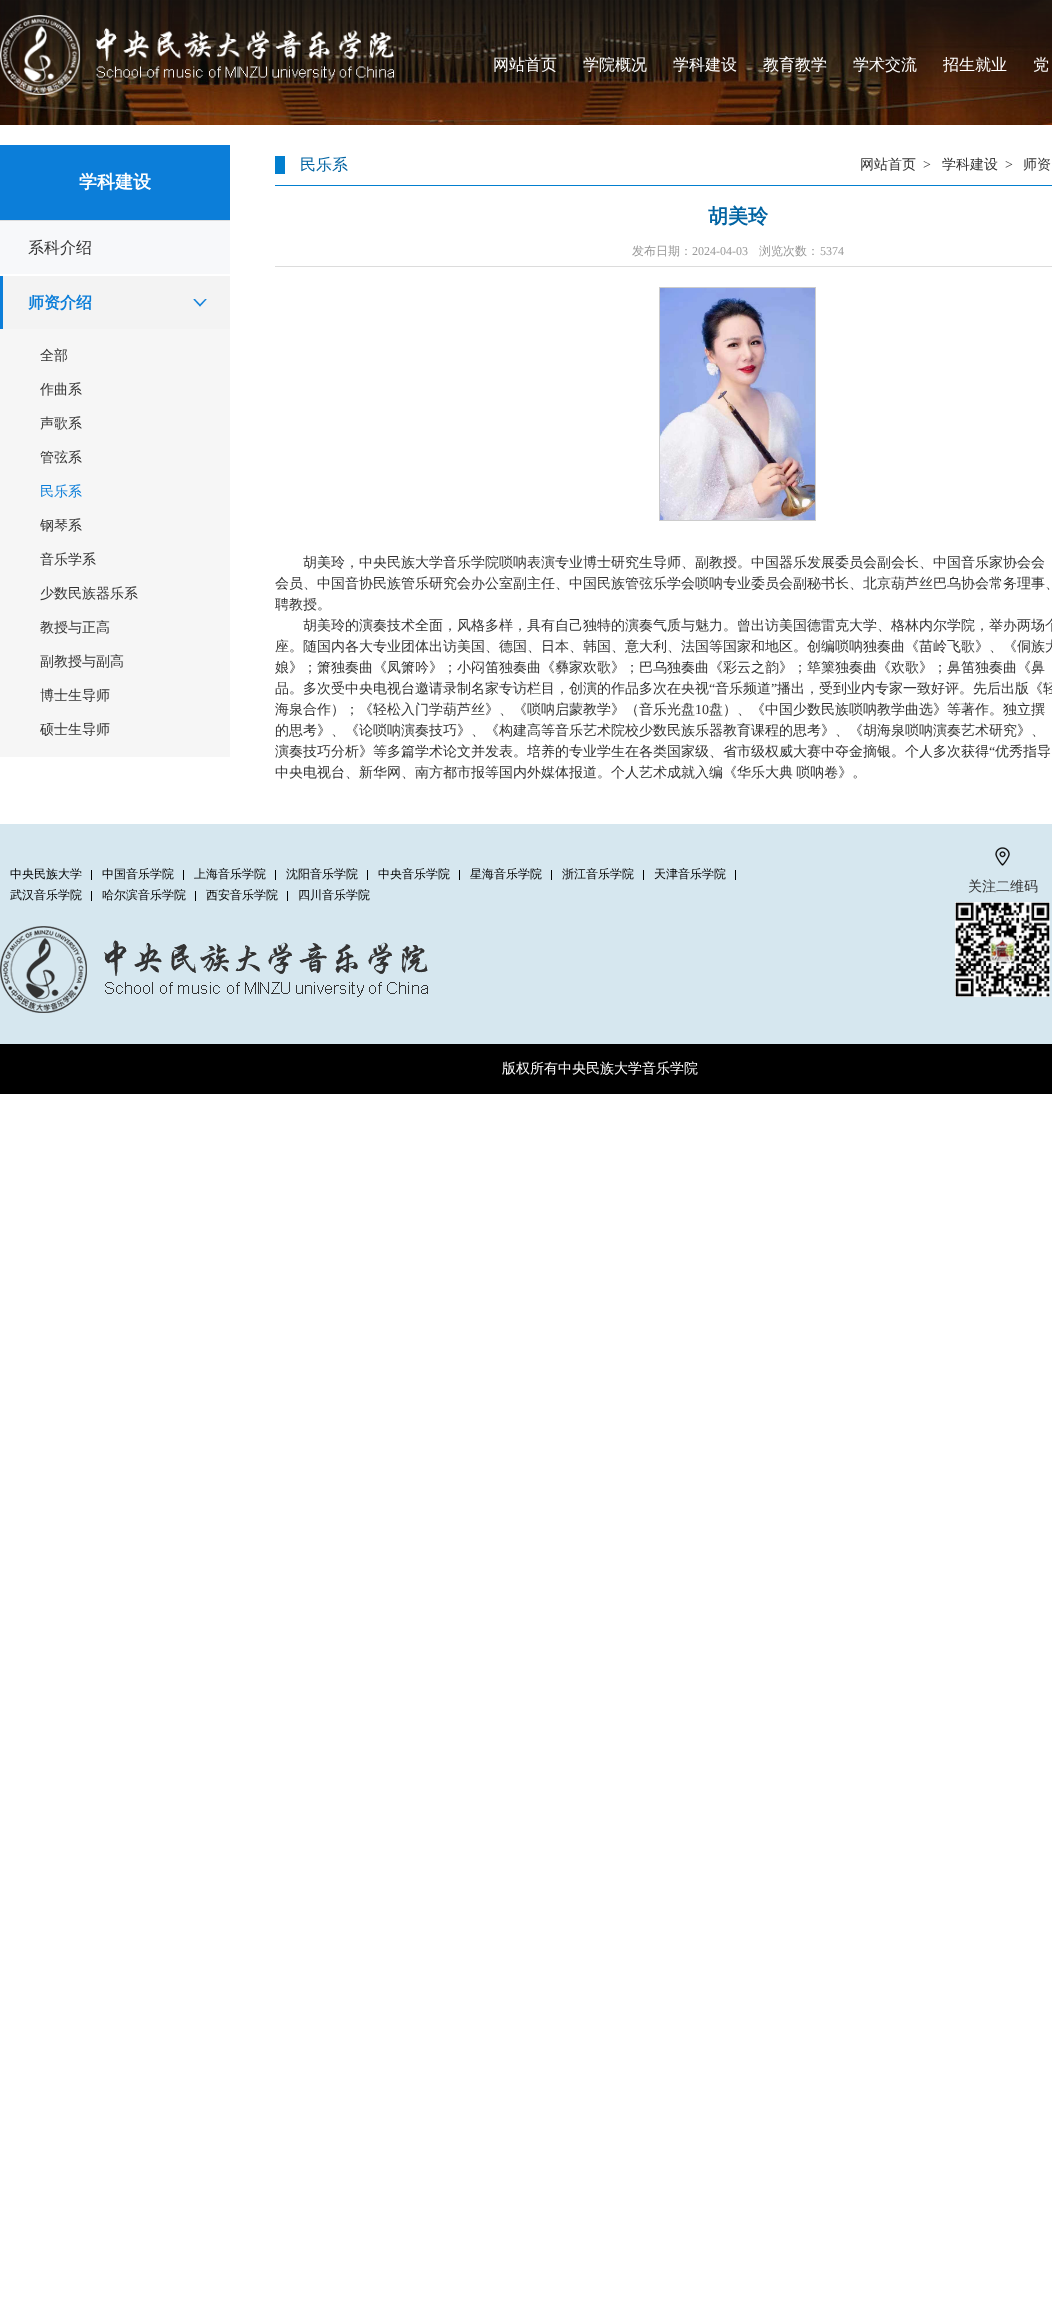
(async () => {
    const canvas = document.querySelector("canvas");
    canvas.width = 1052;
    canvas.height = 2324;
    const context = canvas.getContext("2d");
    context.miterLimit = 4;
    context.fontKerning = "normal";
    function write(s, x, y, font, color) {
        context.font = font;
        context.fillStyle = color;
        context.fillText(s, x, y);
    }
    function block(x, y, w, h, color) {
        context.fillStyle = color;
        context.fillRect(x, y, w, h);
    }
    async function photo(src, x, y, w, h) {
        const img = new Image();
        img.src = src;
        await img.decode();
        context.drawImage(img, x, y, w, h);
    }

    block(0, 0, 1052, 2324, "rgb(255, 255, 255)");
    await photo("media/1.png", 0, 0, 1052, 125);
    await photo("media/2.png", 0, 0, 1052, 125);
    await photo("media/3.png", 0, 15, 394, 80);
    write("网站首页", 493, 70, "500 16px WenQuanYi Zen Hei", "rgb(255, 255, 255)");
    write("学院概况", 583, 70, "500 16px WenQuanYi Zen Hei", "rgb(255, 255, 255)");
    write("学科建设", 673, 70, "500 16px WenQuanYi Zen Hei", "rgb(255, 255, 255)");
    write("教育教学", 763, 70, "500 16px WenQuanYi Zen Hei", "rgb(255, 255, 255)");
    write("学术交流", 853, 70, "500 16px WenQuanYi Zen Hei", "rgb(255, 255, 255)");
    write("招生就业", 943, 70, "500 16px WenQuanYi Zen Hei", "rgb(255, 255, 255)");
    write("党", 1033, 70, "500 16px WenQuanYi Zen Hei", "rgb(255, 255, 255)");
    block(0, 145, 230, 75, "rgb(12, 126, 217)");
    block(0, 220, 230, 1, "rgb(221, 221, 221)");
    write("学科建设", 79, 188, "bold 18px WenQuanYi Zen Hei", "rgb(255, 255, 255)");
    block(0, 221, 230, 53, "rgb(247, 248, 250)");
    write("系科介绍", 28, 253, "500 16px WenQuanYi Zen Hei", "rgb(51, 51, 51)");
    block(3, 276, 227, 53, "rgb(243, 243, 243)");
    block(0, 276, 3, 53, "rgb(12, 126, 217)");
    write("师资介绍", 28, 308, "bold 16px WenQuanYi Zen Hei", "rgb(12, 126, 217)");
    await photo("media/4.png", 193, 299, 14, 8);
    block(0, 329, 230, 428, "rgb(246, 246, 246)");
    write("全部", 40, 360, "500 14px WenQuanYi Zen Hei", "rgb(51, 51, 51)");
    write("作曲系", 40, 394, "500 14px WenQuanYi Zen Hei", "rgb(51, 51, 51)");
    write("声歌系", 40, 428, "500 14px WenQuanYi Zen Hei", "rgb(51, 51, 51)");
    write("管弦系", 40, 462, "500 14px WenQuanYi Zen Hei", "rgb(51, 51, 51)");
    write("民乐系", 40, 496, "500 14px WenQuanYi Zen Hei", "rgb(12, 126, 217)");
    write("钢琴系", 40, 530, "500 14px WenQuanYi Zen Hei", "rgb(51, 51, 51)");
    write("音乐学系", 40, 564, "500 14px WenQuanYi Zen Hei", "rgb(51, 51, 51)");
    write("少数民族器乐系", 40, 598, "500 14px WenQuanYi Zen Hei", "rgb(51, 51, 51)");
    write("教授与正高", 40, 632, "500 14px WenQuanYi Zen Hei", "rgb(51, 51, 51)");
    write("副教授与副高", 40, 666, "500 14px WenQuanYi Zen Hei", "rgb(51, 51, 51)");
    write("博士生导师", 40, 700, "500 14px WenQuanYi Zen Hei", "rgb(51, 51, 51)");
    write("硕士生导师", 40, 734, "500 14px WenQuanYi Zen Hei", "rgb(51, 51, 51)");
    block(275, 185, 777, 1, "rgb(2, 127, 207)");
    block(275, 156, 10, 18, "rgb(2, 127, 207)");
    write("民乐系", 300, 170, "500 16px WenQuanYi Zen Hei", "rgb(1, 99, 162)");
    write("网站首页", 860, 169, "500 14px WenQuanYi Zen Hei", "rgb(51, 51, 51)");
    write(">", 923, 169, "14px Liberation Serif", "rgb(51, 51, 51)");
    write("学科建设", 942, 169, "500 14px WenQuanYi Zen Hei", "rgb(51, 51, 51)");
    write(">", 1005, 169, "14px Liberation Serif", "rgb(51, 51, 51)");
    write("师资", 1023, 169, "500 14px WenQuanYi Zen Hei", "rgb(51, 51, 51)");
    block(275, 266, 777, 1, "rgb(220, 220, 220)");
    write("胡美玲", 708, 223, "bold 20px WenQuanYi Zen Hei", "rgb(1, 99, 162)");
    write("发布日期：", 632, 255, "500 12px WenQuanYi Zen Hei", "rgb(153, 153, 153)");
    write("2024-04-03", 692, 255, "12px Liberation Serif", "rgb(153, 153, 153)");
    write("浏览次数：", 759, 255, "500 12px WenQuanYi Zen Hei", "rgb(153, 153, 153)");
    write("5374", 820, 255, "12px Liberation Serif", "rgb(153, 153, 153)");
    context.strokeStyle = "rgb(204, 204, 204)";
    context.strokeRect(659.5, 287.5, 156, 233);
    await photo("media/5.png", 660, 288, 155, 232);
    write("胡美玲，中央民族大学音乐学院唢呐表演专业博士研究生导师、副教授。中国器乐发展委员会副会长、中国音乐家协会会", 303, 567, "500 14px WenQuanYi Zen Hei", "rgb(51, 51, 51)");
    write("会员、中国音协民族管乐研究会办公室副主任、中国民族管弦乐学会唢呐专业委员会副秘书长、北京葫芦丝巴乌协会常务理事、", 275, 588, "500 14px WenQuanYi Zen Hei", "rgb(51, 51, 51)");
    write("聘教授。", 275, 609, "500 14px WenQuanYi Zen Hei", "rgb(51, 51, 51)");
    write("胡美玲的演奏技术全面，风格多样，具有自己独特的演奏气质与魅力。曾出访美国德雷克大学、格林内尔学院，举办两场个", 303, 630, "500 14px WenQuanYi Zen Hei", "rgb(51, 51, 51)");
    write("座。随国内各大专业团体出访美国、德国、日本、韩国、意大利、法国等国家和地区。创编唢呐独奏曲《苗岭飞歌》、《侗族大", 275, 651, "500 14px WenQuanYi Zen Hei", "rgb(51, 51, 51)");
    write("娘》；箫独奏曲《凤箫吟》；小闷笛独奏曲《彝家欢歌》；巴乌独奏曲《彩云之韵》；筚篥独奏曲《欢歌》；鼻笛独奏曲《鼻", 275, 672, "500 14px WenQuanYi Zen Hei", "rgb(51, 51, 51)");
    write("品。多次受中央电视台邀请录制名家专访栏目，创演的作品多次在央视", 275, 693, "500 14px WenQuanYi Zen Hei", "rgb(51, 51, 51)");
    write("“", 709, 693, "14px Liberation Serif", "rgb(51, 51, 51)");
    write("音乐频道", 715, 693, "500 14px WenQuanYi Zen Hei", "rgb(51, 51, 51)");
    write("”", 771, 693, "14px Liberation Serif", "rgb(51, 51, 51)");
    write("播出，受到业内专家一致好评。先后出版《轻", 777, 693, "500 14px WenQuanYi Zen Hei", "rgb(51, 51, 51)");
    write("海泉合作）；《轻松入门学葫芦丝》、《唢呐启蒙教学》（音乐光盘", 275, 714, "500 14px WenQuanYi Zen Hei", "rgb(51, 51, 51)");
    write("10", 695, 714, "14px Liberation Serif", "rgb(51, 51, 51)");
    write("盘）、《中国少数民族唢呐教学曲选》等著作。独立撰", 709, 714, "500 14px WenQuanYi Zen Hei", "rgb(51, 51, 51)");
    write("的思考》、《论唢呐演奏技巧》、《构建高等音乐艺术院校少数民族乐器教育课程的思考》、《胡海泉唢呐演奏艺术研究》、", 275, 735, "500 14px WenQuanYi Zen Hei", "rgb(51, 51, 51)");
    write("演奏技巧分析》等多篇学术论文并发表。培养的专业学生在各类国家级、省市级权威大赛中夺金摘银。个人多次获得", 275, 756, "500 14px WenQuanYi Zen Hei", "rgb(51, 51, 51)");
    write("“", 989, 756, "14px Liberation Serif", "rgb(51, 51, 51)");
    write("优秀指导", 995, 756, "500 14px WenQuanYi Zen Hei", "rgb(51, 51, 51)");
    context.wordSpacing = "-1px";
    write("中央电视台、新华网、南方都市报等国内外媒体报道。个人艺术成就入编《华乐大典 唢呐卷》。", 275, 777, "500 14px WenQuanYi Zen Hei", "rgb(51, 51, 51)");
    block(0, 824, 1052, 220, "rgb(214, 231, 239)");
    block(91, 870, 1, 10, "rgb(0, 0, 0)");
    context.wordSpacing = "0px";
    write("中央民族大学", 10, 878, "500 12px WenQuanYi Zen Hei", "rgb(0, 0, 0)");
    block(183, 870, 1, 10, "rgb(0, 0, 0)");
    write("中国音乐学院", 102, 878, "500 12px WenQuanYi Zen Hei", "rgb(0, 0, 0)");
    block(275, 870, 1, 10, "rgb(0, 0, 0)");
    write("上海音乐学院", 194, 878, "500 12px WenQuanYi Zen Hei", "rgb(0, 0, 0)");
    block(367, 870, 1, 10, "rgb(0, 0, 0)");
    write("沈阳音乐学院", 286, 878, "500 12px WenQuanYi Zen Hei", "rgb(0, 0, 0)");
    block(459, 870, 1, 10, "rgb(0, 0, 0)");
    write("中央音乐学院", 378, 878, "500 12px WenQuanYi Zen Hei", "rgb(0, 0, 0)");
    block(551, 870, 1, 10, "rgb(0, 0, 0)");
    write("星海音乐学院", 470, 878, "500 12px WenQuanYi Zen Hei", "rgb(0, 0, 0)");
    block(643, 870, 1, 10, "rgb(0, 0, 0)");
    write("浙江音乐学院", 562, 878, "500 12px WenQuanYi Zen Hei", "rgb(0, 0, 0)");
    block(735, 870, 1, 10, "rgb(0, 0, 0)");
    write("天津音乐学院", 654, 878, "500 12px WenQuanYi Zen Hei", "rgb(0, 0, 0)");
    block(91, 891, 1, 10, "rgb(0, 0, 0)");
    write("武汉音乐学院", 10, 899, "500 12px WenQuanYi Zen Hei", "rgb(0, 0, 0)");
    block(195, 891, 1, 10, "rgb(0, 0, 0)");
    write("哈尔滨音乐学院", 102, 899, "500 12px WenQuanYi Zen Hei", "rgb(0, 0, 0)");
    block(287, 891, 1, 10, "rgb(0, 0, 0)");
    write("西安音乐学院", 206, 899, "500 12px WenQuanYi Zen Hei", "rgb(0, 0, 0)");
    write("四川音乐学院", 298, 899, "500 12px WenQuanYi Zen Hei", "rgb(0, 0, 0)");
    await photo("media/6.png", 0, 926, 428, 87);
    await photo("media/7.png", 995, 847, 15, 19);
    write("关注二维码", 968, 891, "500 14px WenQuanYi Zen Hei", "rgb(51, 51, 51)");
    await photo("media/8.png", 955, 902, 95, 95);
    block(0, 1044, 1052, 50, "rgb(0, 0, 0)");
    write("版权所有中央民族大学音乐学院", 502, 1073, "500 14px WenQuanYi Zen Hei", "rgb(255, 255, 255)");
})();
